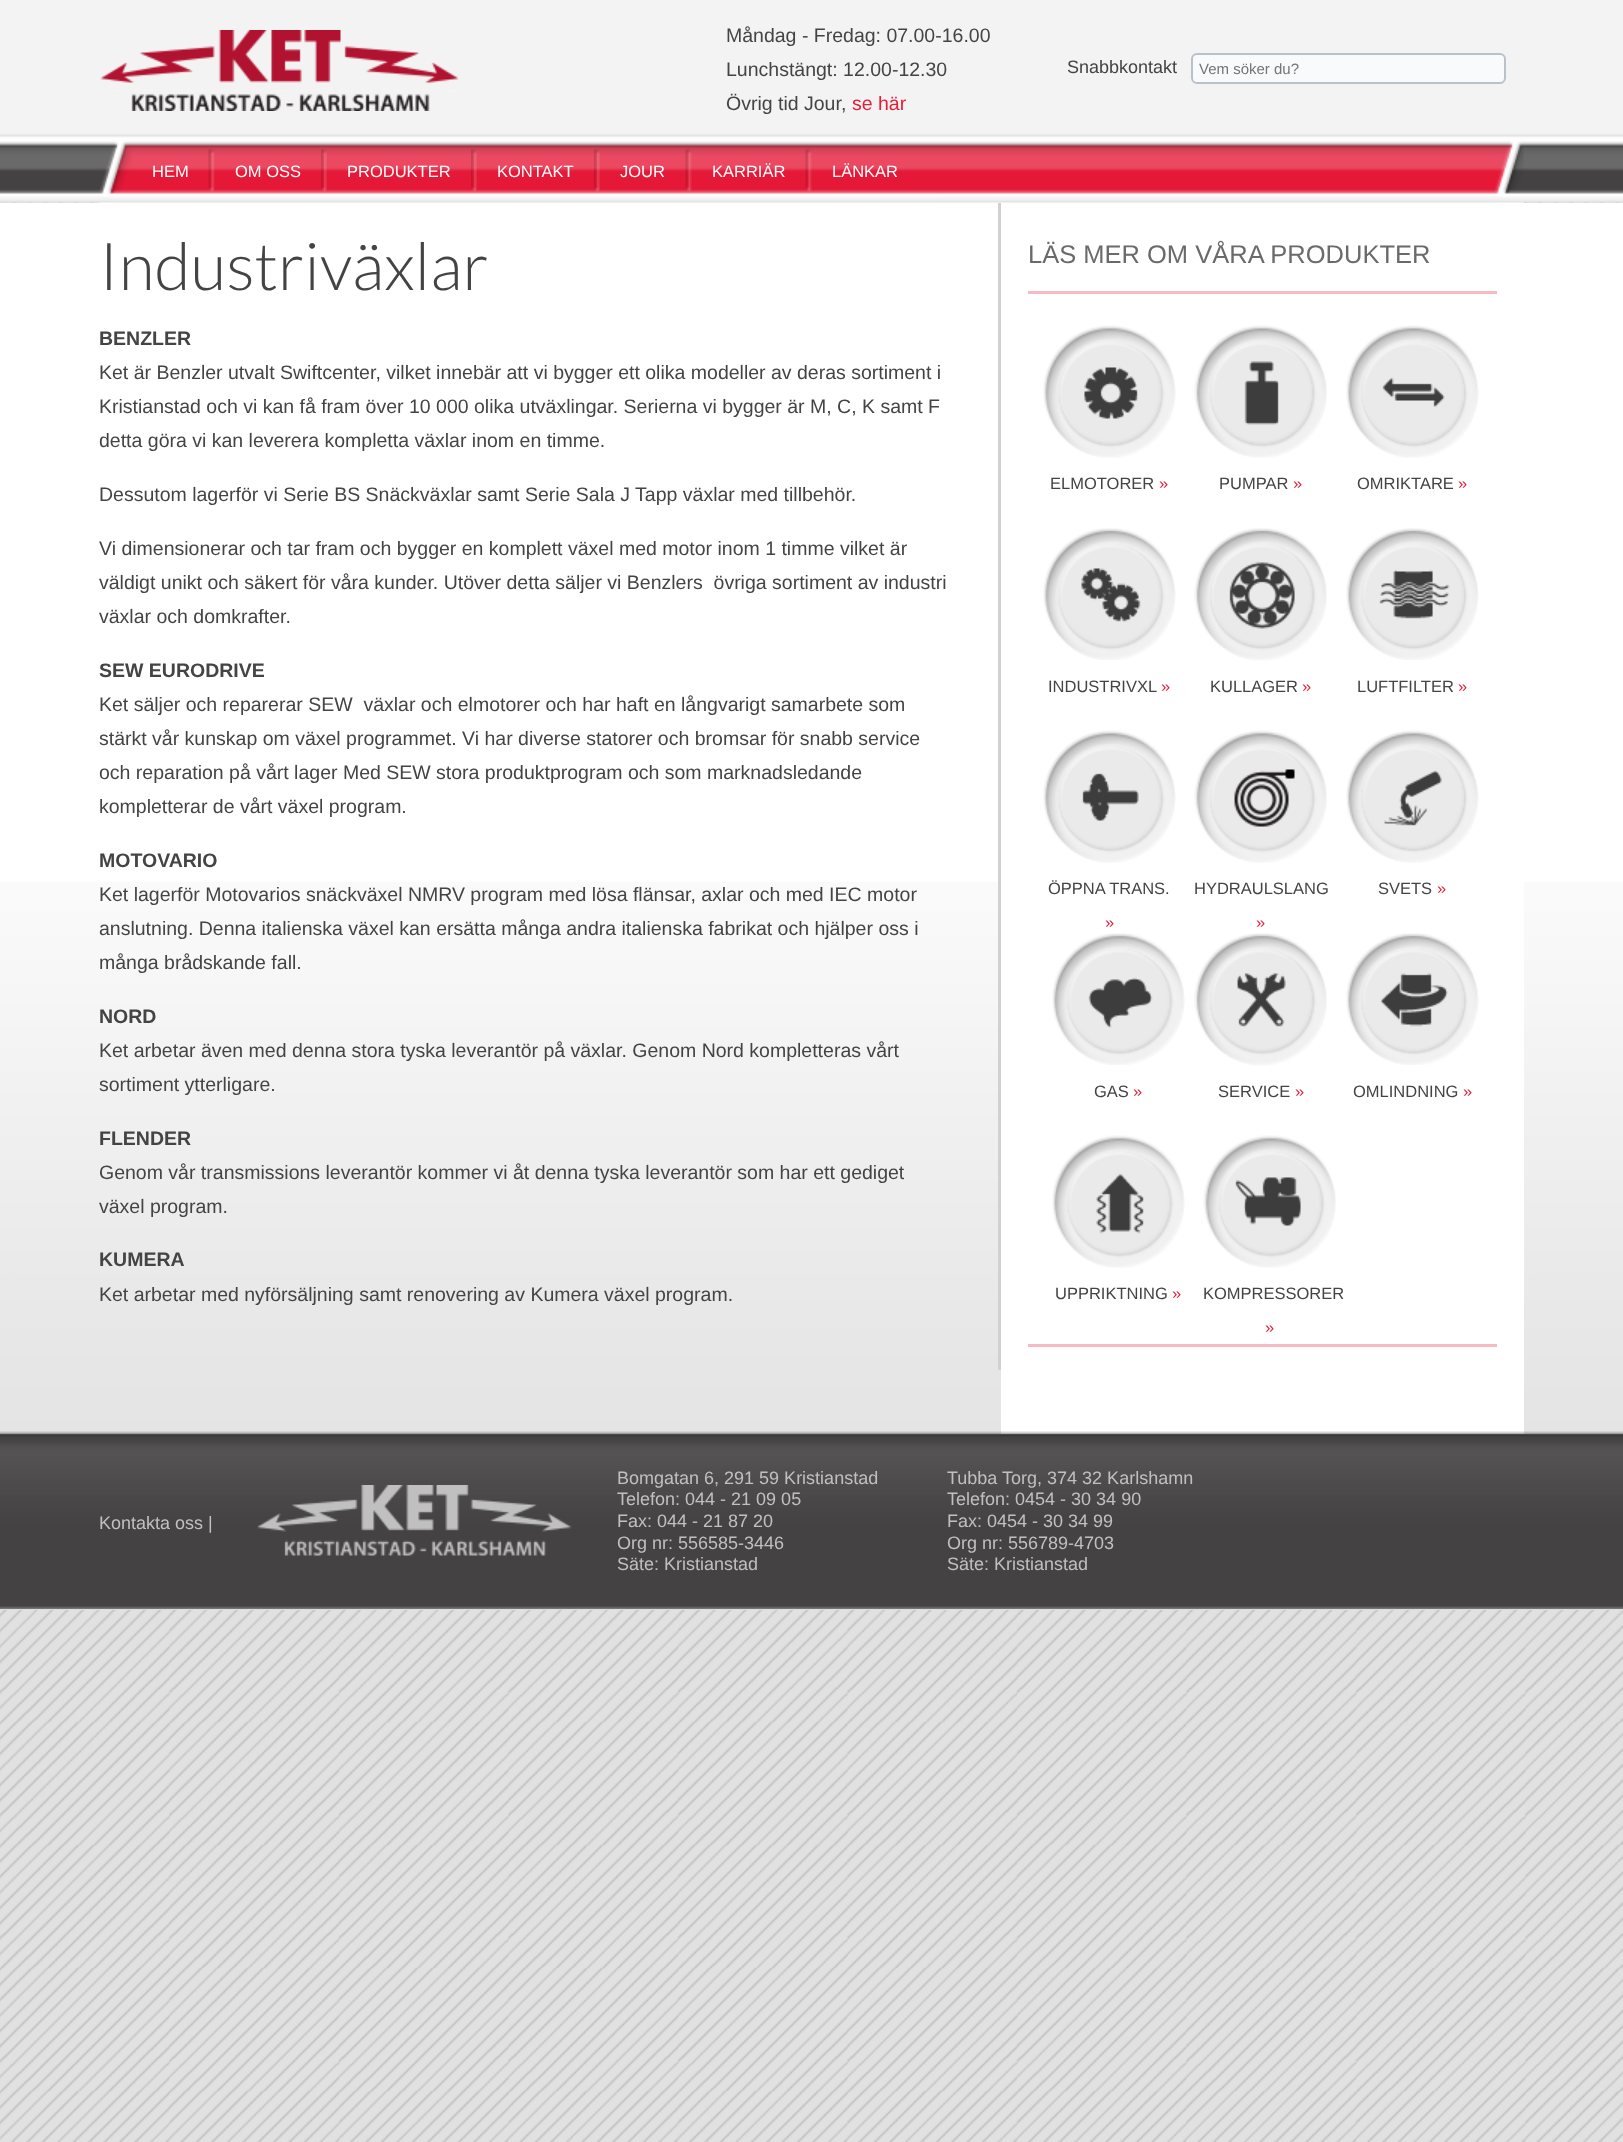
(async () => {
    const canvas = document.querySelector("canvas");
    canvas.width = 1623;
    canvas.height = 2142;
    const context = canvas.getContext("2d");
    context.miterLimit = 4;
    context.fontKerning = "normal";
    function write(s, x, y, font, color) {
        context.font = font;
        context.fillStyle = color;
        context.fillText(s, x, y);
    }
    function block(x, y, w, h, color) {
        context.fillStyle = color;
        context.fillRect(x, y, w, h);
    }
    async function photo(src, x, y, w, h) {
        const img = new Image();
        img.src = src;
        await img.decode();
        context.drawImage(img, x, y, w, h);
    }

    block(0, 0, 1623, 2142, "rgb(255, 255, 255)");
    await photo("media/1.png", 0, 202, 1623, 1940);
    await photo("media/2.png", 0, 0, 1623, 203);
    await photo("media/3.png", 100, 30, 359, 81);
    write("Måndag - Fredag: 07.00-16.00", 726, 42, "19.5px Liberation Sans", "rgb(68, 68, 68)");
    write("Lunchstängt: 12.00-12.30", 726, 76, "19.5px Liberation Sans", "rgb(68, 68, 68)");
    write("Övrig tid Jour,", 726, 110, "19.5px Liberation Sans", "rgb(68, 68, 68)");
    write("se här", 852, 110, "19.5px Liberation Sans", "rgb(231, 28, 55)");
    write("Snabbkontakt", 1067, 73, "18px Liberation Sans", "rgb(68, 68, 68)");
    context.fillStyle = "rgb(249, 250, 251)";
    context.beginPath();
    context.roundRect(1192, 54, 313, 29, 5);
    context.fill();
    context.strokeStyle = "rgb(185, 194, 203)";
    context.lineWidth = 2;
    context.stroke();
    write("Vem söker du?", 1199, 74, "15px Liberation Sans", "rgb(117, 117, 117)");
    block(99, 202, 1425, 1, "rgb(255, 255, 255)");
    await photo("media/4.png", 99, 134, 1425, 69);
    write("HEM", 152, 177, "16.5px Liberation Sans", "rgb(254, 254, 255)");
    await photo("media/5.png", 208, 148, 7, 44);
    write("OM OSS", 235, 177, "16.5px Liberation Sans", "rgb(254, 254, 255)");
    await photo("media/6.png", 321, 148, 6, 44);
    write("PRODUKTER", 347, 177, "16.5px Liberation Sans", "rgb(254, 254, 255)");
    await photo("media/6.png", 471, 148, 6, 44);
    write("KONTAKT", 497, 177, "16.5px Liberation Sans", "rgb(254, 254, 255)");
    await photo("media/6.png", 594, 148, 6, 44);
    write("JOUR", 620, 177, "16.5px Liberation Sans", "rgb(254, 254, 255)");
    await photo("media/7.png", 685, 148, 7, 44);
    write("KARRIÄR", 712, 177, "16.5px Liberation Sans", "rgb(254, 254, 255)");
    await photo("media/5.png", 805, 148, 7, 44);
    write("LÄNKAR", 832, 177, "16.5px Liberation Sans", "rgb(254, 254, 255)");
    block(0, 203, 1623, 1407, "rgb(255, 255, 255)");
    await photo("media/22.png", 0, 882, 1623, 553);
    block(998, 203, 3, 1167, "rgb(209, 209, 209)");
    write("Industriväxlar", 99, 290, "300 66px Lato", "rgb(68, 68, 68)");
    write("BENZLER", 99, 345, "bold 19.5px Liberation Sans", "rgb(68, 68, 68)");
    write("Ket är Benzler utvalt Swiftcenter, vilket innebär att vi bygger ett olika modeller av deras sortiment i", 99, 379, "19.5px Liberation Sans", "rgb(68, 68, 68)");
    write("Kristianstad och vi kan få fram över 10 000 olika utväxlingar. Serierna vi bygger är M, C, K samt F", 99, 413, "19.5px Liberation Sans", "rgb(68, 68, 68)");
    write("detta göra vi kan leverera kompletta växlar inom en timme.", 99, 447, "19.5px Liberation Sans", "rgb(68, 68, 68)");
    write("Dessutom lagerför vi Serie BS Snäckväxlar samt Serie Sala J Tapp växlar med tillbehör.", 99, 501, "19.5px Liberation Sans", "rgb(68, 68, 68)");
    write("Vi dimensionerar och tar fram och bygger en komplett växel med motor inom 1 timme vilket är", 99, 555, "19.5px Liberation Sans", "rgb(68, 68, 68)");
    write("väldigt unikt och säkert för våra kunder. Utöver detta säljer vi Benzlers  övriga sortiment av industri", 99, 589, "19.5px Liberation Sans", "rgb(68, 68, 68)");
    write("växlar och domkrafter.", 99, 623, "19.5px Liberation Sans", "rgb(68, 68, 68)");
    write("SEW EURODRIVE", 99, 677, "bold 19.5px Liberation Sans", "rgb(68, 68, 68)");
    write("Ket säljer och reparerar SEW  växlar och elmotorer och har haft en långvarigt samarbete som", 99, 711, "19.5px Liberation Sans", "rgb(68, 68, 68)");
    write("stärkt vår kunskap om växel programmet. Vi har diverse statorer och bromsar för snabb service", 99, 745, "19.5px Liberation Sans", "rgb(68, 68, 68)");
    write("och reparation på vårt lager Med SEW stora produktprogram och som marknadsledande", 99, 779, "19.5px Liberation Sans", "rgb(68, 68, 68)");
    write("kompletterar de vårt växel program.", 99, 813, "19.5px Liberation Sans", "rgb(68, 68, 68)");
    write("MOTOVARIO", 99, 867, "bold 19.5px Liberation Sans", "rgb(68, 68, 68)");
    write("Ket lagerför Motovarios snäckväxel NMRV program med lösa flänsar, axlar och med IEC motor", 99, 901, "19.5px Liberation Sans", "rgb(68, 68, 68)");
    write("anslutning. Denna italienska växel kan ersätta många andra italienska fabrikat och hjälper oss i", 99, 935, "19.5px Liberation Sans", "rgb(68, 68, 68)");
    write("många brådskande fall.", 99, 969, "19.5px Liberation Sans", "rgb(68, 68, 68)");
    write("NORD", 99, 1023, "bold 19.5px Liberation Sans", "rgb(68, 68, 68)");
    write("Ket arbetar även med denna stora tyska leverantör på växlar. Genom Nord kompletteras vårt", 99, 1057, "19.5px Liberation Sans", "rgb(68, 68, 68)");
    write("sortiment ytterligare.", 99, 1091, "19.5px Liberation Sans", "rgb(68, 68, 68)");
    write("FLENDER", 99, 1145, "bold 19.5px Liberation Sans", "rgb(68, 68, 68)");
    write("Genom vår transmissions leverantör kommer vi åt denna tyska leverantör som har ett gediget", 99, 1179, "19.5px Liberation Sans", "rgb(68, 68, 68)");
    write("växel program.", 99, 1213, "19.5px Liberation Sans", "rgb(68, 68, 68)");
    write("KUMERA", 99, 1266, "bold 19.5px Liberation Sans", "rgb(68, 68, 68)");
    write("Ket arbetar med nyförsäljning samt renovering av Kumera växel program.", 99, 1301, "19.5px Liberation Sans", "rgb(68, 68, 68)");
    block(1001, 882, 523, 552, "rgb(255, 255, 255)");
    write("LÄS MER OM VÅRA PRODUKTER", 1028, 263, "25.5px Liberation Sans", "rgb(106, 106, 106)");
    block(1028, 291, 469, 3, "rgb(246, 186, 194)");
    block(1028, 1344, 469, 3, "rgb(246, 186, 194)");
    await photo("media/8.png", 1043, 325, 133, 133);
    write("ELMOTORER", 1050, 489, "16.5px Liberation Sans", "rgb(68, 68, 68)");
    write("»", 1159, 489, "16.5px Liberation Sans", "rgb(231, 28, 55)");
    await photo("media/9.png", 1194, 325, 133, 133);
    write("PUMPAR", 1219, 489, "16.5px Liberation Sans", "rgb(68, 68, 68)");
    write("»", 1293, 489, "16.5px Liberation Sans", "rgb(231, 28, 55)");
    await photo("media/10.png", 1346, 325, 133, 133);
    write("OMRIKTARE", 1357, 489, "16.5px Liberation Sans", "rgb(68, 68, 68)");
    write("»", 1458, 489, "16.5px Liberation Sans", "rgb(231, 28, 55)");
    await photo("media/11.png", 1043, 528, 133, 132);
    write("INDUSTRIVXL", 1048, 692, "16.5px Liberation Sans", "rgb(68, 68, 68)");
    write("»", 1161, 692, "16.5px Liberation Sans", "rgb(231, 28, 55)");
    await photo("media/12.png", 1194, 528, 133, 133);
    write("KULLAGER", 1210, 692, "16.5px Liberation Sans", "rgb(68, 68, 68)");
    write("»", 1302, 692, "16.5px Liberation Sans", "rgb(231, 28, 55)");
    await photo("media/13.png", 1346, 528, 133, 132);
    write("LUFTFILTER", 1357, 692, "16.5px Liberation Sans", "rgb(68, 68, 68)");
    write("»", 1458, 692, "16.5px Liberation Sans", "rgb(231, 28, 55)");
    await photo("media/14.png", 1043, 730, 133, 133);
    write("ÖPPNA TRANS.", 1048, 894, "16.5px Liberation Sans", "rgb(68, 68, 68)");
    write("»", 1105, 928, "16.5px Liberation Sans", "rgb(231, 28, 55)");
    await photo("media/15.png", 1194, 730, 133, 133);
    write("HYDRAULSLANG", 1194, 894, "16.5px Liberation Sans", "rgb(68, 68, 68)");
    write("»", 1256, 928, "16.5px Liberation Sans", "rgb(231, 28, 55)");
    await photo("media/16.png", 1346, 730, 133, 133);
    write("SVETS", 1378, 894, "16.5px Liberation Sans", "rgb(68, 68, 68)");
    write("»", 1437, 894, "16.5px Liberation Sans", "rgb(231, 28, 55)");
    await photo("media/17.png", 1052, 933, 133, 132);
    write("GAS", 1094, 1097, "16.5px Liberation Sans", "rgb(68, 68, 68)");
    write("»", 1133, 1097, "16.5px Liberation Sans", "rgb(231, 28, 55)");
    await photo("media/18.png", 1194, 933, 133, 133);
    write("SERVICE", 1218, 1097, "16.5px Liberation Sans", "rgb(68, 68, 68)");
    write("»", 1295, 1097, "16.5px Liberation Sans", "rgb(231, 28, 55)");
    await photo("media/19.png", 1346, 933, 133, 132);
    write("OMLINDNING", 1353, 1097, "16.5px Liberation Sans", "rgb(68, 68, 68)");
    write("»", 1463, 1097, "16.5px Liberation Sans", "rgb(231, 28, 55)");
    await photo("media/20.png", 1052, 1135, 133, 133);
    write("UPPRIKTNING", 1055, 1299, "16.5px Liberation Sans", "rgb(68, 68, 68)");
    write("»", 1172, 1299, "16.5px Liberation Sans", "rgb(231, 28, 55)");
    await photo("media/21.png", 1203, 1135, 133, 133);
    write("KOMPRESSORER", 1203, 1299, "16.5px Liberation Sans", "rgb(68, 68, 68)");
    write("»", 1265, 1333, "16.5px Liberation Sans", "rgb(231, 28, 55)");
    await photo("media/23.png", 0, 1431, 1623, 179);
    write("Kontakta oss |", 99, 1529, "18px Liberation Sans", "rgb(192, 192, 192)");
    await photo("media/24.png", 257, 1485, 315, 71);
    write("Bomgatan 6, 291 59 Kristianstad", 617, 1484, "18px Liberation Sans", "rgb(192, 192, 192)");
    write("Telefon: 044 - 21 09 05", 617, 1505, "18px Liberation Sans", "rgb(192, 192, 192)");
    write("Fax: 044 - 21 87 20", 617, 1527, "18px Liberation Sans", "rgb(192, 192, 192)");
    write("Org nr: 556585-3446", 617, 1549, "18px Liberation Sans", "rgb(192, 192, 192)");
    write("Säte: Kristianstad", 617, 1570, "18px Liberation Sans", "rgb(192, 192, 192)");
    write("Tubba Torg, 374 32 Karlshamn", 947, 1484, "18px Liberation Sans", "rgb(192, 192, 192)");
    write("Telefon: 0454 - 30 34 90", 947, 1505, "18px Liberation Sans", "rgb(192, 192, 192)");
    write("Fax: 0454 - 30 34 99", 947, 1527, "18px Liberation Sans", "rgb(192, 192, 192)");
    write("Org nr: 556789-4703", 947, 1549, "18px Liberation Sans", "rgb(192, 192, 192)");
    write("Säte: Kristianstad", 947, 1570, "18px Liberation Sans", "rgb(192, 192, 192)");
})();
